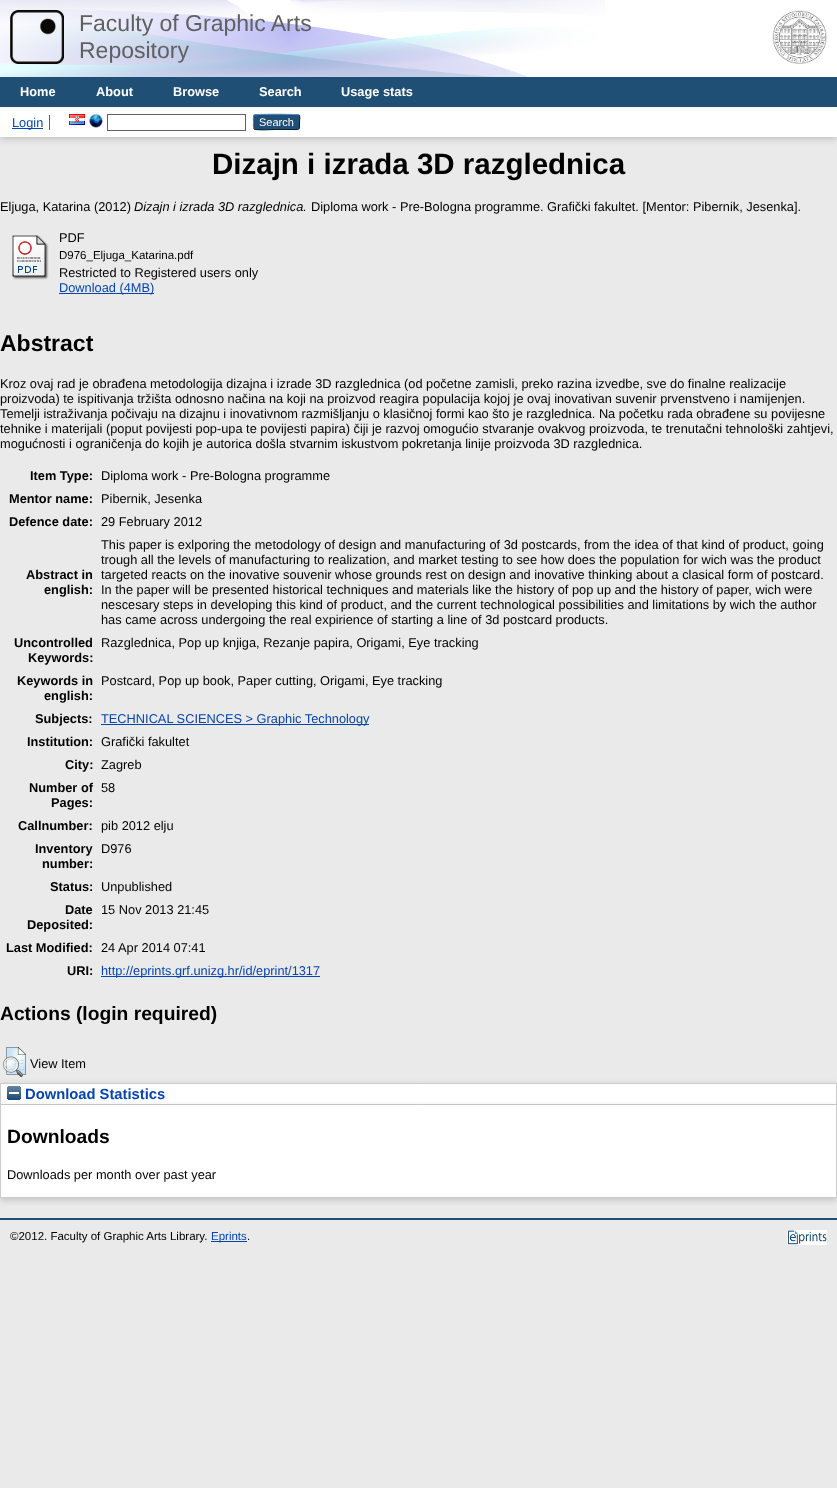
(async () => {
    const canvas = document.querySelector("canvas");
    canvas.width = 837;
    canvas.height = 1488;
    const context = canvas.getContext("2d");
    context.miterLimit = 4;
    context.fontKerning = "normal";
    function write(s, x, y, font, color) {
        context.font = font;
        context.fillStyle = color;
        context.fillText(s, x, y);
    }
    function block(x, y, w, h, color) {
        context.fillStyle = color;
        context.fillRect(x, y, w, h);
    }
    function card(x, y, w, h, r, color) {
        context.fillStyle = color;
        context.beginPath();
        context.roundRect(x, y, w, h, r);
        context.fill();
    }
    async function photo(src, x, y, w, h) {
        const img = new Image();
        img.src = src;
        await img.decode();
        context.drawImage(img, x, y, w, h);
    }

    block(0, 0, 837, 1488, "rgb(234, 234, 234)");
    block(0, 0, 837, 77, "rgb(255, 255, 255)");
    await photo("media/1.png", 0, 0, 605, 77);
    await photo("media/2.png", 10, 10, 54, 54);
    write("Faculty of Graphic Arts", 79, 31, "23px Liberation Sans", "rgb(96, 96, 96)");
    write("Repository", 79, 58, "23px Liberation Sans", "rgb(96, 96, 96)");
    await photo("media/3.png", 772, 10, 55, 54);
    block(0, 77, 837, 30, "rgb(32, 79, 118)");
    block(0, 107, 837, 1, "rgb(255, 255, 255)");
    write("Home", 20, 96, "bold 12.8px Liberation Sans", "rgb(255, 255, 255)");
    write("About", 96, 96, "bold 12.8px Liberation Sans", "rgb(255, 255, 255)");
    write("Browse", 173, 96, "bold 12.8px Liberation Sans", "rgb(255, 255, 255)");
    write("Search", 259, 96, "bold 12.8px Liberation Sans", "rgb(255, 255, 255)");
    write("Usage stats", 341, 96, "bold 12.8px Liberation Sans", "rgb(255, 255, 255)");
    context.fillStyle = "rgba(100, 100, 100, 0.3)";
    context.filter = "blur(3px)";
    context.beginPath();
    context.rect(0, 110, 837, 29);
    context.fill();
    context.filter = "none";
    block(0, 108, 837, 29, "rgb(255, 255, 255)");
    block(49, 115, 1, 15, "rgb(96, 96, 96)");
    block(12, 128, 31, 1, "rgb(6, 69, 173)");
    write("Login", 12, 127, "12.8px Liberation Sans", "rgb(6, 69, 173)");
    await photo("media/4.png", 69, 114, 16, 11);
    await photo("media/5.png", 89, 114, 14, 14);
    context.strokeStyle = "rgb(96, 96, 96)";
    context.strokeRect(107.5, 114.5, 138, 16);
    card(253, 114, 47, 16, 3, "rgb(31, 79, 118)");
    context.beginPath();
    context.moveTo(254, 115);
    context.bezierCurveTo(255.5, 114, 297.5, 114, 299, 115);
    context.strokeStyle = "rgb(91, 151, 199)";
    context.stroke();
    context.beginPath();
    context.moveTo(299, 115);
    context.bezierCurveTo(300.5, 117, 299.5, 120, 299.5, 122);
    context.bezierCurveTo(299.5, 131, 299.5, 129.5, 290, 129.5);
    context.lineTo(276.5, 129.5);
    context.bezierCurveTo(273, 129.5, 256, 130.5, 254, 129);
    context.strokeStyle = "rgb(13, 33, 49)";
    context.stroke();
    context.beginPath();
    context.moveTo(254, 129);
    context.bezierCurveTo(253, 127.5, 253.5, 123.5, 253.5, 122);
    context.bezierCurveTo(253.5, 120.5, 253, 116.5, 254, 115);
    context.strokeStyle = "rgb(82, 135, 179)";
    context.stroke();
    write("Search", 259, 126, "11px Liberation Sans", "rgb(255, 255, 255)");
    write("Dizajn i izrada 3D razglednica", 212, 174, "bold 29.5px Liberation Sans", "rgb(0, 0, 0)");
    write("Eljuga, Katarina (2012)", 0, 211, "12.8px Liberation Sans", "rgb(0, 0, 0)");
    write("Dizajn i izrada 3D razglednica.", 134, 211, "italic 12.8px Liberation Sans", "rgb(0, 0, 0)");
    write("Diploma work - Pre-Bologna programme. Grafički fakultet. [Mentor: Pibernik, Jesenka].", 311, 211, "12.8px Liberation Sans", "rgb(0, 0, 0)");
    await photo("media/6.png", 12, 235, 37, 45);
    write("PDF", 59, 242, "12.8px Liberation Sans", "rgb(0, 0, 0)");
    write("D976_Eljuga_Katarina.pdf", 59, 259, "11.5px Liberation Sans", "rgb(0, 0, 0)");
    write("Restricted to Registered users only", 59, 277, "12.8px Liberation Sans", "rgb(0, 0, 0)");
    block(59, 293, 95, 1, "rgb(6, 69, 173)");
    write("Download (4MB)", 59, 292, "12.8px Liberation Sans", "rgb(6, 69, 173)");
    write("Abstract", 0, 351, "bold 23px Liberation Sans", "rgb(0, 0, 0)");
    write("Kroz ovaj rad je obrađena metodologija dizajna i izrade 3D razglednica (od početne zamisli, preko razina izvedbe, sve do finalne realizacije", 0, 388, "12.8px Liberation Sans", "rgb(0, 0, 0)");
    write("proizvoda) te ispitivanja tržišta odnosno načina na koji na proizvod reagira populacija kojoj je ovaj inovativan suvenir prvenstveno i namijenjen.", 0, 403, "12.8px Liberation Sans", "rgb(0, 0, 0)");
    write("Temelji istraživanja počivaju na dizajnu i inovativnom razmišljanju o klasičnoj formi kao što je razglednica. Na početku rada obrađene su povijesne", 0, 418, "12.8px Liberation Sans", "rgb(0, 0, 0)");
    write("tehnike i materijali (poput povijesti pop-upa te povijesti papira) čiji je razvoj omogućio stvaranje ovakvog proizvoda, te trenutačni tehnološki zahtjevi,", 0, 433, "12.8px Liberation Sans", "rgb(0, 0, 0)");
    write("mogućnosti i ograničenja do kojih je autorica došla stvarnim iskustvom pokretanja linije proizvoda 3D razglednica.", 0, 448, "12.8px Liberation Sans", "rgb(0, 0, 0)");
    write("Item Type:", 30, 480, "bold 12.8px Liberation Sans", "rgb(0, 0, 0)");
    write("Diploma work - Pre-Bologna programme", 101, 480, "12.8px Liberation Sans", "rgb(0, 0, 0)");
    write("Mentor name:", 9, 503, "bold 12.8px Liberation Sans", "rgb(0, 0, 0)");
    write("Pibernik, Jesenka", 101, 503, "12.8px Liberation Sans", "rgb(0, 0, 0)");
    write("Defence date:", 9, 526, "bold 12.8px Liberation Sans", "rgb(0, 0, 0)");
    write("29 February 2012", 101, 526, "12.8px Liberation Sans", "rgb(0, 0, 0)");
    write("Abstract in", 26, 579, "bold 12.8px Liberation Sans", "rgb(0, 0, 0)");
    write("english:", 44, 594, "bold 12.8px Liberation Sans", "rgb(0, 0, 0)");
    write("This paper is exlporing the metodology of design and manufacturing of 3d postcards, from the idea of that kind of product, going", 101, 549, "12.8px Liberation Sans", "rgb(0, 0, 0)");
    write("trough all the levels of manufacturing to realization, and market testing to see how does the population for wich was the product", 101, 564, "12.8px Liberation Sans", "rgb(0, 0, 0)");
    write("targeted reacts on the inovative souvenir whose grounds rest on design and inovative thinking about a clasical form of postcard.", 101, 579, "12.8px Liberation Sans", "rgb(0, 0, 0)");
    write("In the paper will be presented historical techniques and materials like the history of pop up and the history of paper, wich were", 101, 594, "12.8px Liberation Sans", "rgb(0, 0, 0)");
    write("nescesary steps in developing this kind of product, and the current technological possibilities and limitations by wich the author", 101, 609, "12.8px Liberation Sans", "rgb(0, 0, 0)");
    write("has came across undergoing the real expirience of starting a line of 3d postcard products.", 101, 624, "12.8px Liberation Sans", "rgb(0, 0, 0)");
    write("Uncontrolled", 14, 647, "bold 12.8px Liberation Sans", "rgb(0, 0, 0)");
    write("Keywords:", 28, 662, "bold 12.8px Liberation Sans", "rgb(0, 0, 0)");
    write("Razglednica, Pop up knjiga, Rezanje papira, Origami, Eye tracking", 101, 647, "12.8px Liberation Sans", "rgb(0, 0, 0)");
    write("Keywords in", 17, 685, "bold 12.8px Liberation Sans", "rgb(0, 0, 0)");
    write("english:", 44, 700, "bold 12.8px Liberation Sans", "rgb(0, 0, 0)");
    write("Postcard, Pop up book, Paper cutting, Origami, Eye tracking", 101, 685, "12.8px Liberation Sans", "rgb(0, 0, 0)");
    write("Subjects:", 35, 723, "bold 12.8px Liberation Sans", "rgb(0, 0, 0)");
    block(101, 724, 268, 1, "rgb(6, 69, 173)");
    write("TECHNICAL SCIENCES > Graphic Technology", 101, 723, "12.8px Liberation Sans", "rgb(6, 69, 173)");
    write("Institution:", 27, 746, "bold 12.8px Liberation Sans", "rgb(0, 0, 0)");
    write("Grafički fakultet", 101, 746, "12.8px Liberation Sans", "rgb(0, 0, 0)");
    write("City:", 65, 769, "bold 12.8px Liberation Sans", "rgb(0, 0, 0)");
    write("Zagreb", 101, 769, "12.8px Liberation Sans", "rgb(0, 0, 0)");
    write("Number of", 29, 792, "bold 12.8px Liberation Sans", "rgb(0, 0, 0)");
    write("Pages:", 51, 807, "bold 12.8px Liberation Sans", "rgb(0, 0, 0)");
    write("58", 101, 792, "12.8px Liberation Sans", "rgb(0, 0, 0)");
    write("Callnumber:", 18, 830, "bold 12.8px Liberation Sans", "rgb(0, 0, 0)");
    write("pib 2012 elju", 101, 830, "12.8px Liberation Sans", "rgb(0, 0, 0)");
    write("Inventory", 35, 853, "bold 12.8px Liberation Sans", "rgb(0, 0, 0)");
    write("number:", 42, 868, "bold 12.8px Liberation Sans", "rgb(0, 0, 0)");
    write("D976", 101, 853, "12.8px Liberation Sans", "rgb(0, 0, 0)");
    write("Status:", 50, 891, "bold 12.8px Liberation Sans", "rgb(0, 0, 0)");
    write("Unpublished", 101, 891, "12.8px Liberation Sans", "rgb(0, 0, 0)");
    write("Date", 65, 914, "bold 12.8px Liberation Sans", "rgb(0, 0, 0)");
    write("Deposited:", 27, 929, "bold 12.8px Liberation Sans", "rgb(0, 0, 0)");
    write("15 Nov 2013 21:45", 101, 914, "12.8px Liberation Sans", "rgb(0, 0, 0)");
    write("Last Modified:", 6, 952, "bold 12.8px Liberation Sans", "rgb(0, 0, 0)");
    write("24 Apr 2014 07:41", 101, 952, "12.8px Liberation Sans", "rgb(0, 0, 0)");
    write("URI:", 67, 975, "bold 12.8px Liberation Sans", "rgb(0, 0, 0)");
    block(101, 976, 219, 1, "rgb(6, 69, 173)");
    write("http://eprints.grf.unizg.hr/id/eprint/1317", 101, 975, "12.8px Liberation Sans", "rgb(6, 69, 173)");
    write("Actions (login required)", 0, 1020, "bold 19.25px Liberation Sans", "rgb(0, 0, 0)");
    context.fillStyle = "rgba(100, 100, 100, 0.3)";
    context.filter = "blur(3px)";
    context.beginPath();
    context.rect(0, 1085, 837, 22);
    context.fill();
    context.filter = "none";
    await photo("media/7.png", 3, 1047, 23, 30);
    write("View Item", 30, 1068, "12.8px Liberation Sans", "rgb(0, 0, 0)");
    context.fillStyle = "rgb(255, 255, 255)";
    context.beginPath();
    context.rect(0.5, 1083.5, 836, 21);
    context.fill();
    context.strokeStyle = "rgb(204, 204, 204)";
    context.stroke();
    context.fillStyle = "rgba(100, 100, 100, 0.3)";
    context.filter = "blur(3px)";
    context.beginPath();
    context.rect(0, 1107, 837, 93);
    context.fill();
    context.filter = "none";
    await photo("media/8.png", 7, 1086, 14, 14);
    write("Download Statistics", 25, 1099, "bold 14.75px Liberation Sans", "rgb(6, 69, 173)");
    block(1, 1105, 835, 92, "rgb(255, 255, 255)");
    block(836, 1105, 1, 93, "rgb(204, 204, 204)");
    block(0, 1197, 837, 1, "rgb(204, 204, 204)");
    block(0, 1105, 1, 93, "rgb(204, 204, 204)");
    write("Downloads", 7, 1143, "bold 19.25px Liberation Sans", "rgb(0, 0, 0)");
    write("Downloads per month over past year", 7, 1179, "12.8px Liberation Sans", "rgb(0, 0, 0)");
    block(0, 1218, 837, 2, "rgb(32, 79, 118)");
    write("©2012. Faculty of Graphic Arts Library.", 10, 1240, "11.5px Liberation Sans", "rgb(0, 0, 0)");
    block(211, 1241, 36, 1, "rgb(6, 69, 173)");
    write("Eprints", 211, 1240, "11.5px Liberation Sans", "rgb(6, 69, 173)");
    write(".", 247, 1240, "11.5px Liberation Sans", "rgb(0, 0, 0)");
    await photo("media/9.png", 787, 1230, 40, 15);
})();
